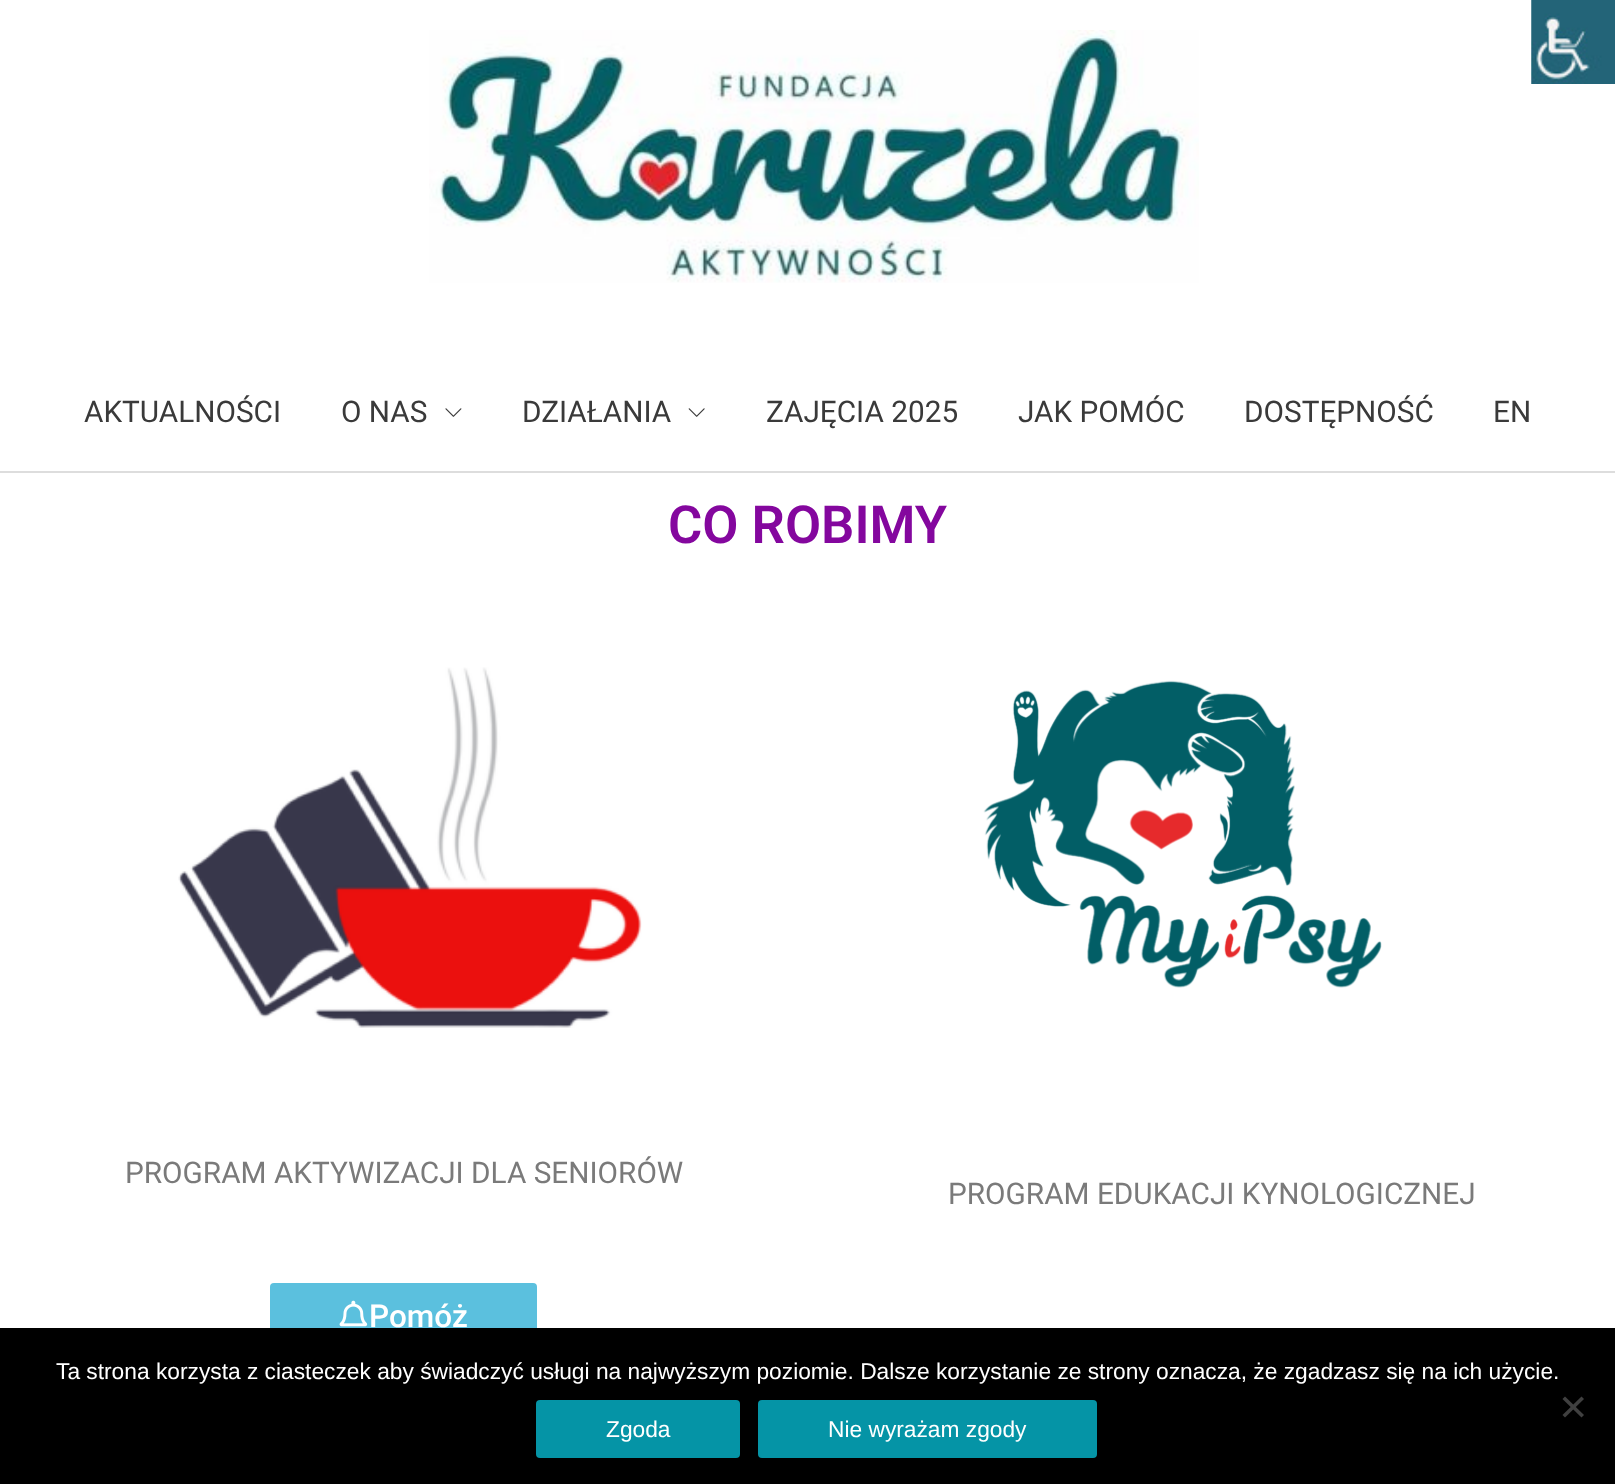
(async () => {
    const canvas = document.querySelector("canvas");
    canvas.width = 1615;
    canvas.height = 1484;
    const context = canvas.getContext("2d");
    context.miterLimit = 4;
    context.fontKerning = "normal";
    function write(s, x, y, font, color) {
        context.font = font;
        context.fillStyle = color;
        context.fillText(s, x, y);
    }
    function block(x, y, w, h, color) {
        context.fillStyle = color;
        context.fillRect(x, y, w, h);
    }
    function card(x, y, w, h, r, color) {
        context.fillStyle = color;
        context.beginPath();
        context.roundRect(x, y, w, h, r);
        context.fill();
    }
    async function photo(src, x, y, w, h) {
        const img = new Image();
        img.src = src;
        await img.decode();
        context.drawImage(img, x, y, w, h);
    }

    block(0, 0, 1615, 1484, "rgb(255, 255, 255)");
    await photo("media/1.png", 1531, 0, 84, 84);
    block(0, 471, 1615, 2, "rgb(221, 221, 221)");
    await photo("media/2.png", 429, 30, 770, 253);
    write("AKTUALNOŚCI", 84, 422, "29.75px Roboto", "rgb(58, 58, 58)");
    write("O NAS", 341, 422, "29.75px Roboto", "rgb(58, 58, 58)");
    await photo("media/3.png", 445, 408, 17, 9);
    write("DZIAŁANIA", 522, 422, "29.75px Roboto", "rgb(58, 58, 58)");
    await photo("media/4.png", 688, 408, 17, 9);
    write("ZAJĘCIA 2025", 766, 422, "29.75px Roboto", "rgb(58, 58, 58)");
    write("JAK POMÓC", 1018, 422, "29.75px Roboto", "rgb(58, 58, 58)");
    write("DOSTĘPNOŚĆ", 1244, 422, "29.75px Roboto", "rgb(58, 58, 58)");
    write("EN", 1493, 422, "29.75px Roboto", "rgb(58, 58, 58)");
    write("CO ROBIMY", 668, 543, "600 52.5px Roboto", "rgb(132, 7, 158)");
    await photo("media/5.png", 178, 667, 464, 361);
    write("PROGRAM AKTYWIZACJI DLA SENIORÓW", 125, 1183, "29.75px Roboto", "rgb(122, 122, 122)");
    await photo("media/6.png", 983, 680, 399, 308);
    write("PROGRAM EDUKACJI KYNOLOGICZNEJ", 948, 1204, "29.75px Roboto", "rgb(122, 122, 122)");
    card(270, 1283, 267, 66, 4, "rgb(91, 192, 222)");
    await photo("media/7.png", 339, 1300, 29, 27);
    write("Pomóż", 369, 1327, "500 31.5px Roboto", "rgb(255, 255, 255)");
    block(0, 1328, 1615, 156, "rgb(0, 0, 0)");
    write("Ta strona korzysta z ciasteczek aby świadczyć usługi na najwyższym poziomie. Dalsze korzystanie ze strony oznacza, że zgadzasz się na ich użycie.", 56, 1379, "22.75px Liberation Sans", "rgb(255, 255, 255)");
    context.fillStyle = "rgb(64, 64, 64)";
    context.beginPath();
    context.moveTo(1581.5, 1396.5);
    context.lineTo(1584, 1399);
    context.lineTo(1565, 1417.5);
    context.lineTo(1562.5, 1415);
    context.closePath();
    context.fill();
    context.beginPath();
    context.moveTo(1562.5, 1399);
    context.lineTo(1565, 1396.5);
    context.lineTo(1584, 1415);
    context.lineTo(1581.5, 1417.5);
    context.closePath();
    context.fill();
    card(536, 1400, 204, 58, 4, "rgb(5, 148, 166)");
    write("Zgoda", 606, 1437, "22.75px Liberation Sans", "rgb(255, 255, 255)");
    card(758, 1400, 339, 58, 4, "rgb(5, 148, 166)");
    write("Nie wyrażam zgody", 828, 1437, "22.75px Liberation Sans", "rgb(255, 255, 255)");
})();
